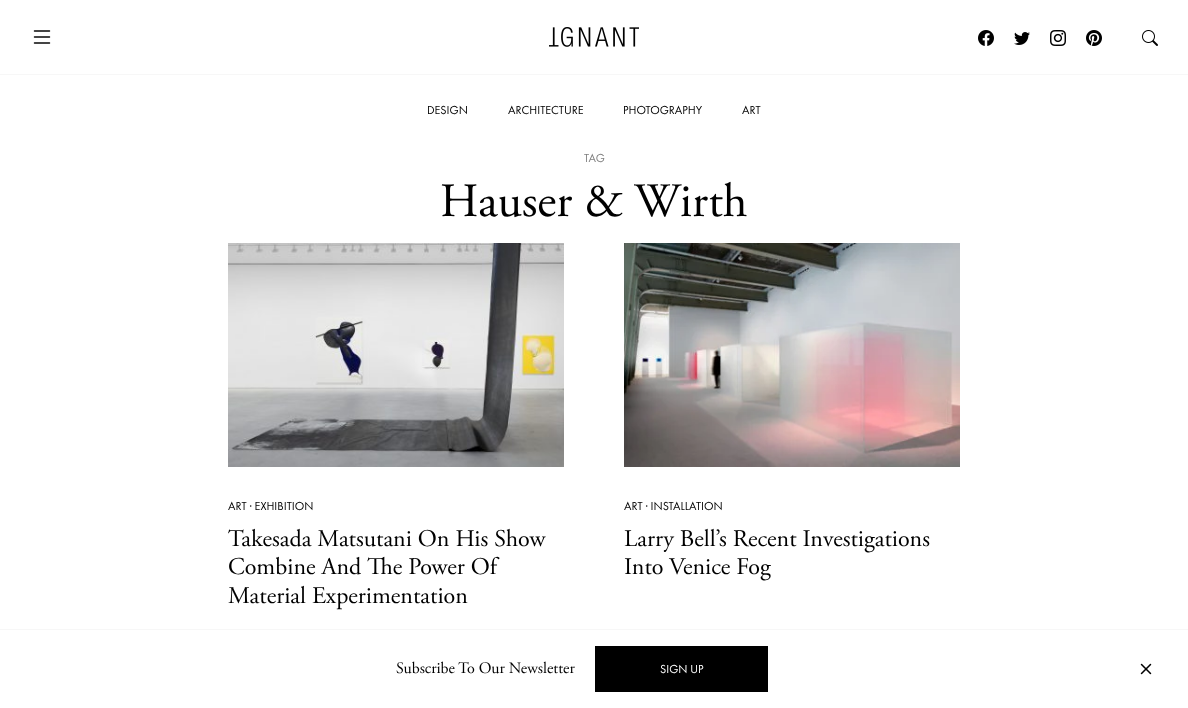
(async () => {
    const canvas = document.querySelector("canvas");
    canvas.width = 1188;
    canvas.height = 708;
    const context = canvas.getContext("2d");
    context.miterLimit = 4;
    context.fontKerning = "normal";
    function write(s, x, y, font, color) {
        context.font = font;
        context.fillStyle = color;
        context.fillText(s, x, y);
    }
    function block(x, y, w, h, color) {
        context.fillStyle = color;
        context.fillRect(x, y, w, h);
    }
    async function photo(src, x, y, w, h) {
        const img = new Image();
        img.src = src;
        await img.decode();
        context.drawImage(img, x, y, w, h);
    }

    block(0, 0, 1188, 708, "rgb(255, 255, 255)");
    block(0, 74, 1188, 1, "rgb(247, 247, 247)");
    await photo("media/1.png", 33, 30, 18, 14);
    await photo("media/2.png", 549, 27, 90, 20);
    await photo("media/3.png", 978, 30, 16, 16);
    await photo("media/4.png", 1014, 32, 16, 13);
    await photo("media/5.png", 1050, 30, 16, 16);
    await photo("media/6.png", 1086, 30, 16, 16);
    await photo("media/7.png", 1142, 30, 16, 16);
    write("DESIGN", 427, 114, "12px Futura PT", "rgb(0, 0, 0)");
    write("ARCHITECTURE", 508, 114, "12px Futura PT", "rgb(0, 0, 0)");
    write("PHOTOGRAPHY", 623, 114, "12px Futura PT", "rgb(0, 0, 0)");
    write("ART", 742, 114, "12px Futura PT", "rgb(0, 0, 0)");
    write("TAG", 584, 162, "12px Futura PT", "rgb(128, 128, 128)");
    write("Hauser & Wirth", 440, 216, "47.75px Adobe Garamond", "rgb(0, 0, 0)");
    await photo("media/8.png", 228, 243, 336, 224);
    write("ART · EXHIBITION", 228, 510, "12px Futura PT", "rgb(0, 0, 0)");
    write("Takesada Matsutani On His Show", 228, 546, "24px Adobe Garamond", "rgb(0, 0, 0)");
    write("Combine And The Power Of", 228, 574, "24px Adobe Garamond", "rgb(0, 0, 0)");
    write("Material Experimentation", 228, 603, "24px Adobe Garamond", "rgb(0, 0, 0)");
    await photo("media/9.png", 624, 243, 336, 224);
    write("ART · INSTALLATION", 624, 510, "12px Futura PT", "rgb(0, 0, 0)");
    write("Larry Bell’s Recent Investigations", 624, 546, "24px Adobe Garamond", "rgb(0, 0, 0)");
    write("Into Venice Fog", 624, 574, "24px Adobe Garamond", "rgb(0, 0, 0)");
    block(0, 629, 1188, 1, "rgb(247, 247, 247)");
    write("Subscribe To Our Newsletter", 396, 673, "16px Adobe Garamond", "rgb(0, 0, 0)");
    block(595, 646, 173, 46, "rgb(0, 0, 0)");
    write("SIGN UP", 660, 673, "12px Futura PT", "rgb(255, 255, 255)");
    await photo("media/10.png", 1140, 663, 12, 12);
})();
